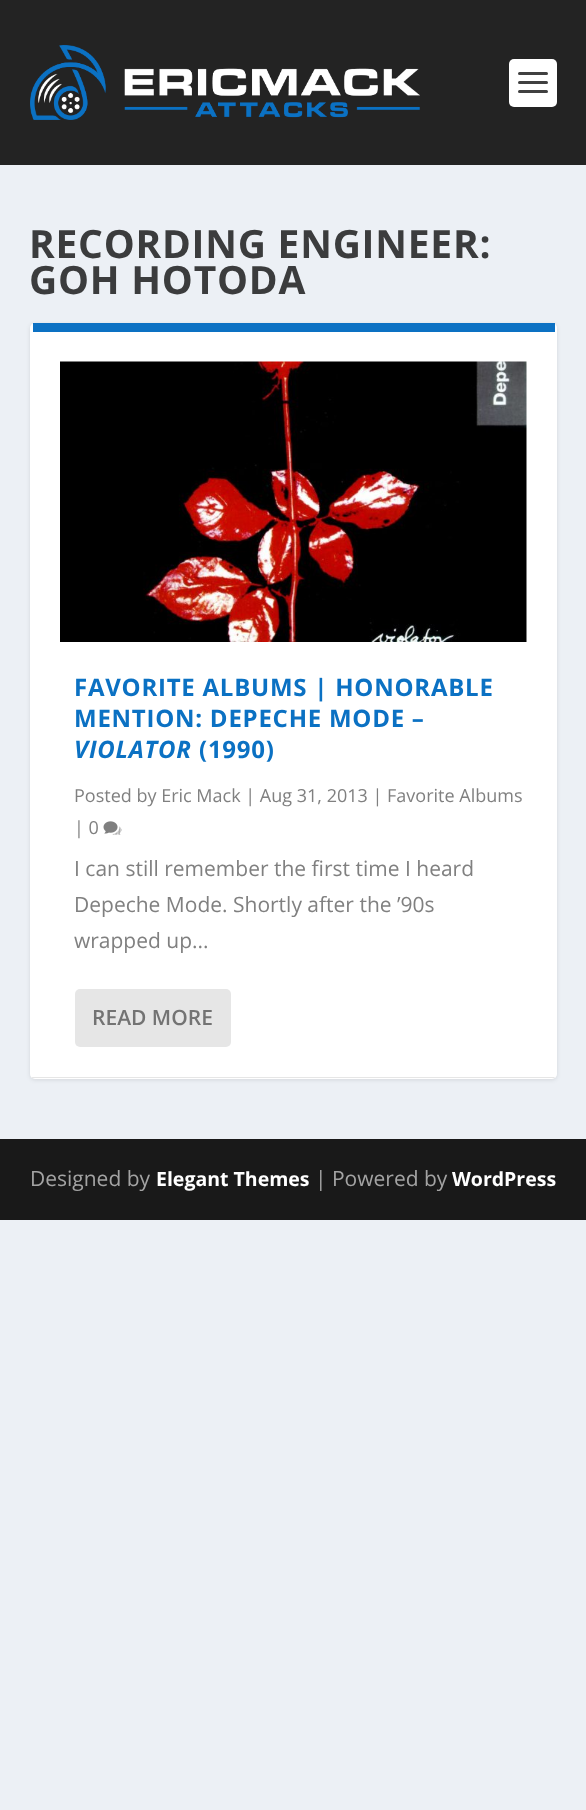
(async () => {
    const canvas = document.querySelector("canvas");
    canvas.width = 586;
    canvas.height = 1810;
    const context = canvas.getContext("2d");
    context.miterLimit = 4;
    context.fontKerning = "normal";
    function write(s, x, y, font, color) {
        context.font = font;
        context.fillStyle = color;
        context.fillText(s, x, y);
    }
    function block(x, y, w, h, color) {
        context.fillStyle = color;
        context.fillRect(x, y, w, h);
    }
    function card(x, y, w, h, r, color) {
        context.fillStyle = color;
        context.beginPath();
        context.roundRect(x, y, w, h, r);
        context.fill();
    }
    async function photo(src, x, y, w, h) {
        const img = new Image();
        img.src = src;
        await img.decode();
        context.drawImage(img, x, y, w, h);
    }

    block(0, 0, 586, 1810, "rgb(236, 240, 245)");
    block(0, 0, 586, 165, "rgb(35, 35, 35)");
    await photo("media/1.png", 30, 45, 390, 75);
    card(509, 59, 48, 48, 5, "rgb(255, 255, 255)");
    card(518, 72, 30, 3, 1.5, "rgb(64, 64, 64)");
    card(518, 81, 30, 3, 1.5, "rgb(64, 64, 64)");
    card(518, 90, 30, 3, 1.5, "rgb(64, 64, 64)");
    context.letterSpacing = "0.75px";
    write("RECORDING ENGINEER:", 29, 258, "bold 39px Open Sans", "rgb(59, 60, 61)");
    write("GOH HOTODA", 29, 294, "bold 39px Open Sans", "rgb(59, 60, 61)");
    context.fillStyle = "rgba(0, 0, 0, 0.1)";
    context.filter = "blur(2px)";
    context.beginPath();
    context.roundRect(30, 324, 527, 756, 5);
    context.fill();
    context.filter = "none";
    card(30, 323, 527, 756, 5, "rgb(255, 255, 255)");
    block(33, 323, 522, 9, "rgb(12, 113, 195)");
    context.fillStyle = "rgb(230, 230, 230)";
    context.beginPath();
    context.moveTo(555, 1077);
    context.bezierCurveTo(555, 1078, 553, 1078, 552, 1078);
    context.lineTo(34, 1078);
    context.bezierCurveTo(33, 1078, 32, 1078, 31, 1077);
    context.closePath();
    context.fill();
    await photo("media/2.png", 60, 361, 467, 281);
    write("FAVORITE ALBUMS | HONORABLE", 74, 696, "bold 24px Open Sans", "rgb(11, 113, 195)");
    write("MENTION: DEPECHE MODE –", 74, 727, "bold 24px Open Sans", "rgb(11, 113, 195)");
    write("VIOLATOR", 74, 758, "italic bold 24px Open Sans", "rgb(11, 113, 195)");
    write("(1990)", 199, 758, "bold 24px Open Sans", "rgb(11, 113, 195)");
    context.letterSpacing = "0px";
    write("Posted by Eric Mack | Aug 31, 2013 | Favorite Albums", 74, 802, "18px Open Sans", "rgb(128, 128, 128)");
    write("| 0", 74, 834, "18px Open Sans", "rgb(128, 128, 128)");
    await photo("media/3.png", 103, 821, 19, 14);
    write("I can still remember the first time I heard", 74, 876, "21px Open Sans", "rgb(128, 128, 128)");
    write("Depeche Mode. Shortly after the ’90s", 74, 912, "21px Open Sans", "rgb(128, 128, 128)");
    write("wrapped up...", 74, 948, "21px Open Sans", "rgb(128, 128, 128)");
    card(75, 989, 156, 58, 5, "rgb(230, 230, 230)");
    write("READ MORE", 92, 1025, "600 21px Open Sans", "rgb(115, 115, 115)");
    block(0, 1139, 586, 81, "rgb(25, 25, 25)");
    write("Designed by", 30, 1186, "21px Open Sans", "rgb(163, 163, 163)");
    write("Elegant Themes", 156, 1186, "bold 19.5px Open Sans", "rgb(255, 255, 255)");
    write("| Powered by", 315, 1186, "21px Open Sans", "rgb(163, 163, 163)");
    write("WordPress", 452, 1186, "bold 19.5px Open Sans", "rgb(255, 255, 255)");
})();
